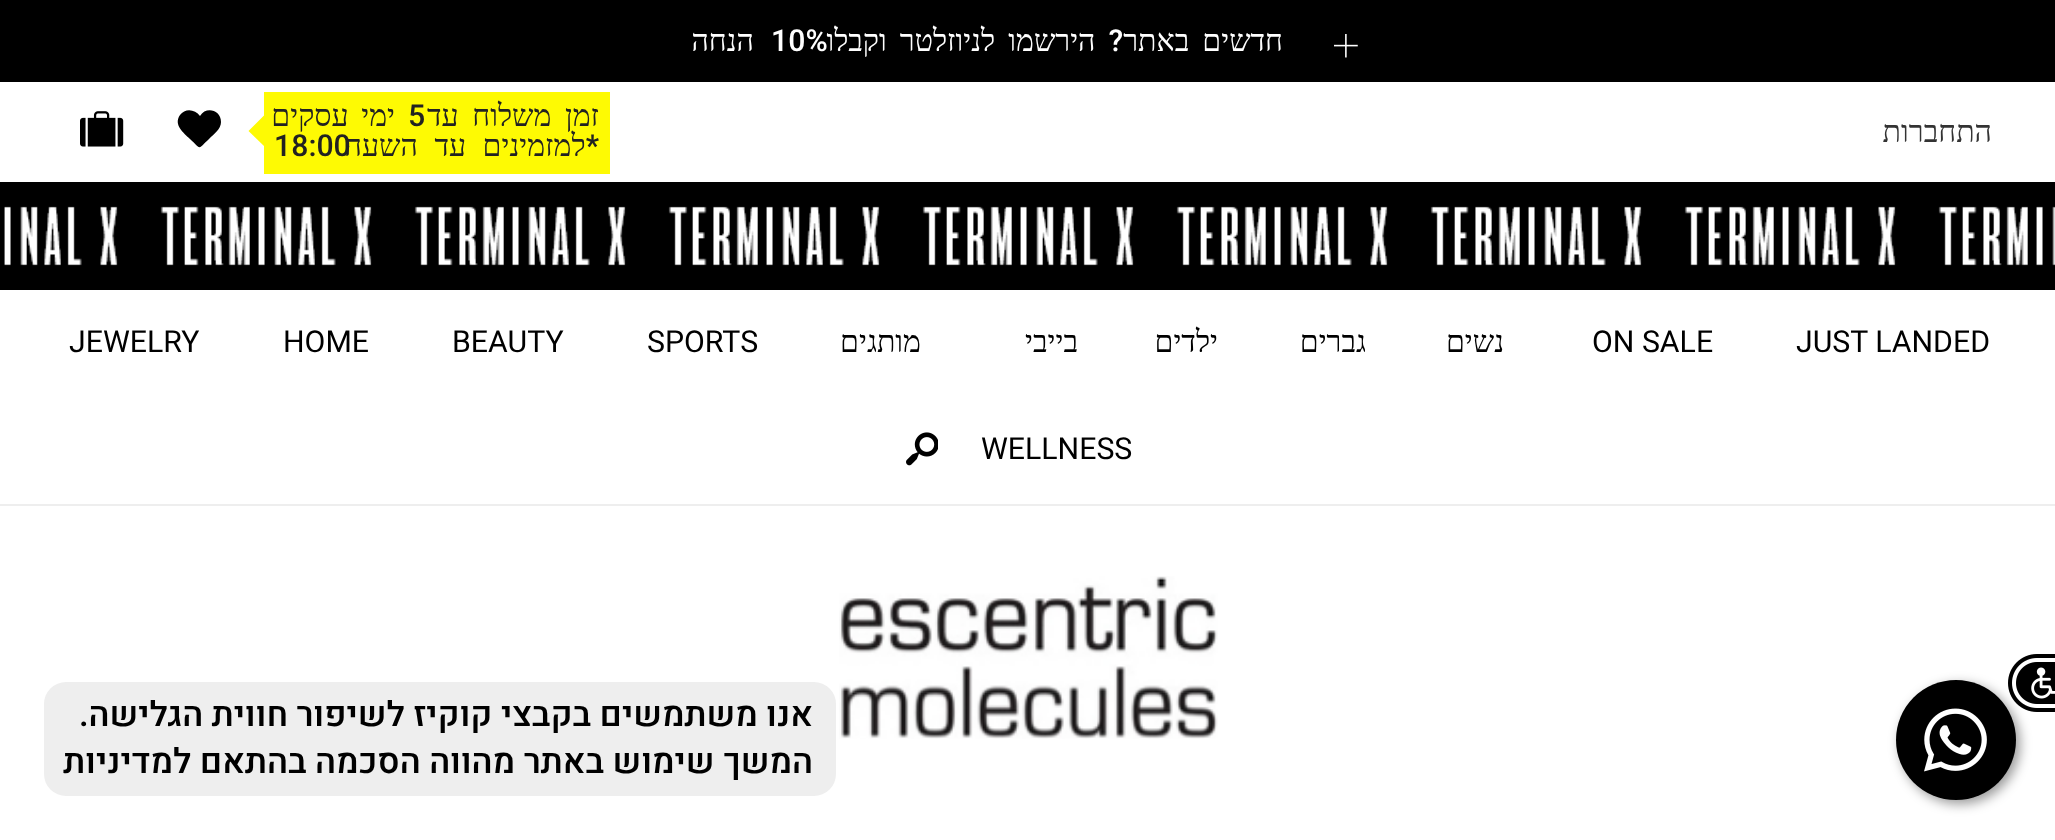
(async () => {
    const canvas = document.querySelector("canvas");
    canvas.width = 2055;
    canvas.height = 840;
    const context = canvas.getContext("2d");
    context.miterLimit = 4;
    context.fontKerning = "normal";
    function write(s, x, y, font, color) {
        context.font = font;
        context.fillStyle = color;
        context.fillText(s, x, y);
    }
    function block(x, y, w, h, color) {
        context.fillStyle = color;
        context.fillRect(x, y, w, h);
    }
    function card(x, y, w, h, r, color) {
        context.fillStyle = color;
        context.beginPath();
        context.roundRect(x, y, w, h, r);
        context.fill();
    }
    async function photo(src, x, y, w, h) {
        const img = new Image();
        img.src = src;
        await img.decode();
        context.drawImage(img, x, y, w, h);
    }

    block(0, 0, 2055, 840, "rgb(255, 255, 255)");
    context.fillStyle = "rgba(0, 0, 0, 0.4)";
    context.filter = "blur(6px)";
    context.beginPath();
    context.roundRect(1900, 684, 120, 120, 60);
    context.fill();
    context.filter = "none";
    context.fillStyle = "rgb(0, 0, 0)";
    context.beginPath();
    context.arc(1956, 740, 60, 0, Math.PI * 2);
    context.fill();
    await photo("media/1.png", 2008, 654, 47, 58);
    block(0, 0, 2055, 82, "rgb(0, 0, 0)");
    await photo("media/2.png", 1334, 34, 24, 24);
    context.wordSpacing = "5.5px";
    context.direction = "rtl";
    write("חדשים באתר? הירשמו לניוזלטר וקבלו", 1283, 51, "500 30.25px Roboto", "rgb(255, 255, 255)");
    context.wordSpacing = "0px";
    context.direction = "ltr";
    write("10%", 771, 51, "500 30.25px Roboto", "rgb(255, 255, 255)");
    context.direction = "rtl";
    write("הנחה", 754, 51, "500 30.25px Roboto", "rgb(255, 255, 255)");
    write("התחברות", 1992, 142, "500 30.25px Roboto", "rgb(51, 51, 51)");
    context.fillStyle = "rgb(254, 250, 3)";
    context.beginPath();
    context.moveTo(264, 115.5);
    context.lineTo(279, 131);
    context.lineTo(264, 146);
    context.lineTo(248.5, 131);
    context.closePath();
    context.fill();
    block(264, 92, 346, 82, "rgb(254, 250, 3)");
    context.wordSpacing = "6px";
    write("זמן משלוח עד", 599, 126, "500 30.25px Roboto", "rgb(34, 34, 34)");
    context.wordSpacing = "0px";
    context.direction = "ltr";
    write("5", 408, 126, "500 30.25px Roboto", "rgb(34, 34, 34)");
    context.wordSpacing = "5px";
    context.direction = "rtl";
    write("ימי עסקים", 395, 126, "500 30.25px Roboto", "rgb(34, 34, 34)");
    context.wordSpacing = "9px";
    write("*למזמינים עד השעה", 599, 156, "500 30.25px Roboto", "rgb(34, 34, 34)");
    context.wordSpacing = "0px";
    context.direction = "ltr";
    write("18:00", 274, 156, "500 30.25px Roboto", "rgb(34, 34, 34)");
    context.fillStyle = "rgb(0, 0, 0)";
    context.beginPath();
    context.moveTo(221, 122);
    context.bezierCurveTo(221, 110, 206, 106, 200, 116);
    context.bezierCurveTo(195, 109, 185, 108, 180, 115);
    context.bezierCurveTo(173, 125, 184, 133, 190, 139);
    context.bezierCurveTo(202, 150, 197, 150, 209, 139);
    context.bezierCurveTo(214, 134, 221, 129, 221, 122);
    context.closePath();
    context.fill();
    await photo("media/3.png", 80, 111, 44, 36);
    await photo("media/4.png", 0, 182, 2055, 108);
    block(0, 504, 2055, 2, "rgb(238, 238, 238)");
    write("JUST LANDED", 1796, 352, "30.25px Roboto", "rgb(0, 0, 0)");
    write("ON SALE", 1592, 352, "30.25px Roboto", "rgb(0, 0, 0)");
    context.direction = "rtl";
    write("נשים", 1504, 352, "500 30.25px Roboto", "rgb(0, 0, 0)");
    write("גברים", 1366, 352, "500 30.25px Roboto", "rgb(0, 0, 0)");
    write("ילדים", 1218, 352, "500 30.25px Roboto", "rgb(0, 0, 0)");
    write("בייבי", 1078, 352, "500 30.25px Roboto", "rgb(0, 0, 0)");
    write("מותגים", 921, 352, "500 30.25px Roboto", "rgb(0, 0, 0)");
    context.direction = "ltr";
    write("SPORTS", 647, 352, "30.25px Roboto", "rgb(0, 0, 0)");
    write("BEAUTY", 452, 352, "30.25px Roboto", "rgb(0, 0, 0)");
    write("HOME", 283, 352, "30.25px Roboto", "rgb(0, 0, 0)");
    write("JEWELRY", 69, 352, "30.25px Roboto", "rgb(0, 0, 0)");
    write("WELLNESS", 981, 459, "30.25px Roboto", "rgb(0, 0, 0)");
    await photo("media/5.png", 906, 432, 32, 34);
    await photo("media/6.png", 839, 576, 379, 163);
    card(44, 682, 792, 114, 22, "rgb(238, 238, 238)");
    context.direction = "rtl";
    write("אנו משתמשים בקבצי קוקיז לשיפור חווית הגלישה.", 813, 726, "500 34.6px Heebo", "rgb(0, 0, 0)");
    write("המשך שימוש באתר מהווה הסכמה בהתאם למדיניות", 813, 773, "500 34.6px Heebo", "rgb(0, 0, 0)");
    await photo("media/7.png", 1924, 708, 63, 64);
})();
